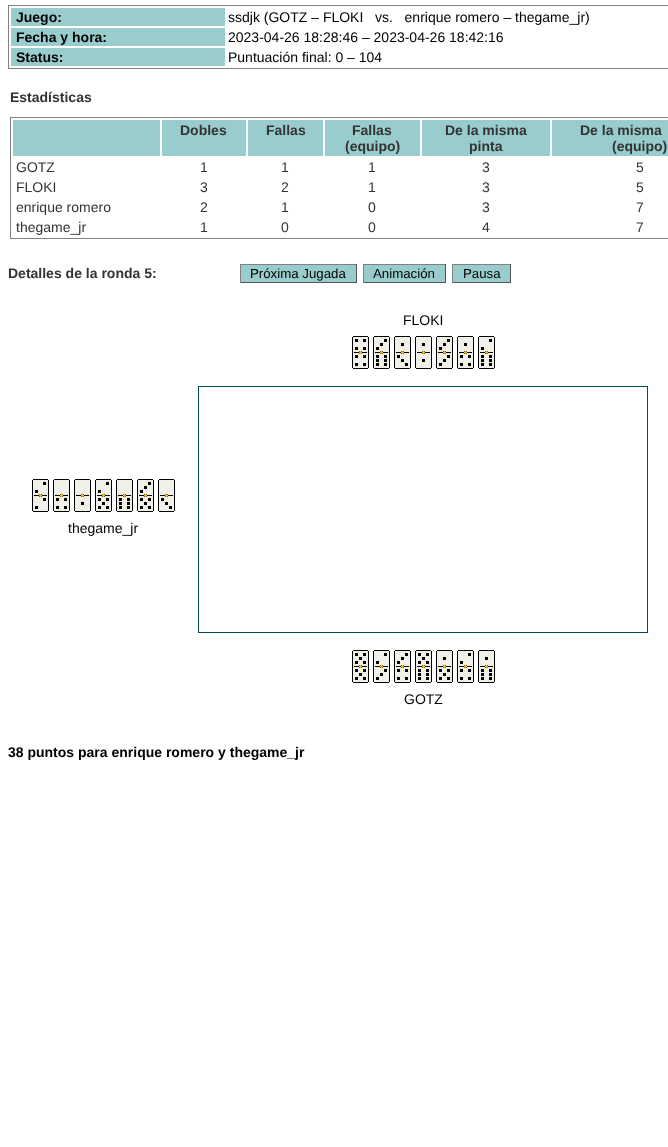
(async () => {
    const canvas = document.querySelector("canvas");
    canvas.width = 668;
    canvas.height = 1147;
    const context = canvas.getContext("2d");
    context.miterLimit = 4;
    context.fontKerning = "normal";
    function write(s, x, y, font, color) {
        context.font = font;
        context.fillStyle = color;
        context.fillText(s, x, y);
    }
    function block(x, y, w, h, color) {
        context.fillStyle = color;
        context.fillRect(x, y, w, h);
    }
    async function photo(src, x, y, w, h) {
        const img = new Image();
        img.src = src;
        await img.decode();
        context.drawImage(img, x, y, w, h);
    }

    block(0, 0, 668, 1147, "rgb(255, 255, 255)");
    context.strokeStyle = "rgb(128, 128, 128)";
    context.strokeRect(8.5, 5.5, 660, 63);
    block(11, 8, 214, 18, "rgb(153, 204, 204)");
    write("Juego:", 16, 22, "bold 14px Liberation Sans", "rgb(0, 0, 0)");
    write("ssdjk (GOTZ – FLOKI   vs.   enrique romero – thegame_jr)", 228, 22, "14px Liberation Sans", "rgb(0, 0, 0)");
    block(11, 28, 214, 18, "rgb(153, 204, 204)");
    write("Fecha y hora:", 16, 42, "bold 14px Liberation Sans", "rgb(0, 0, 0)");
    write("2023-04-26 18:28:46 – 2023-04-26 18:42:16", 228, 42, "14px Liberation Sans", "rgb(0, 0, 0)");
    block(11, 48, 214, 18, "rgb(153, 204, 204)");
    write("Status:", 16, 62, "bold 14px Liberation Sans", "rgb(0, 0, 0)");
    write("Puntuación final: 0 – 104", 228, 62, "14px Liberation Sans", "rgb(0, 0, 0)");
    write("Estadísticas", 10, 102, "bold 14px Liberation Sans", "rgb(51, 51, 51)");
    context.strokeRect(10.5, 117.5, 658, 121);
    block(13, 120, 147, 36, "rgb(153, 204, 204)");
    block(162, 120, 84, 36, "rgb(153, 204, 204)");
    write("Dobles", 180, 135, "bold 14px Liberation Sans", "rgb(51, 51, 51)");
    block(248, 120, 75, 36, "rgb(153, 204, 204)");
    write("Fallas", 266, 135, "bold 14px Liberation Sans", "rgb(51, 51, 51)");
    block(325, 120, 95, 36, "rgb(153, 204, 204)");
    write("Fallas", 352, 135, "bold 14px Liberation Sans", "rgb(51, 51, 51)");
    write("(equipo)", 345, 151, "bold 14px Liberation Sans", "rgb(51, 51, 51)");
    block(422, 120, 128, 36, "rgb(153, 204, 204)");
    write("De la misma", 445, 135, "bold 14px Liberation Sans", "rgb(51, 51, 51)");
    write("pinta", 469, 151, "bold 14px Liberation Sans", "rgb(51, 51, 51)");
    block(552, 120, 116, 36, "rgb(153, 204, 204)");
    write("De la misma", 580, 135, "bold 14px Liberation Sans", "rgb(51, 51, 51)");
    write("(equipo)", 612, 151, "bold 14px Liberation Sans", "rgb(51, 51, 51)");
    write("GOTZ", 16, 172, "14px Liberation Sans", "rgb(51, 51, 51)");
    write("1", 200, 172, "14px Liberation Sans", "rgb(51, 51, 51)");
    write("1", 281, 172, "14px Liberation Sans", "rgb(51, 51, 51)");
    write("1", 368, 172, "14px Liberation Sans", "rgb(51, 51, 51)");
    write("3", 482, 172, "14px Liberation Sans", "rgb(51, 51, 51)");
    write("5", 636, 172, "14px Liberation Sans", "rgb(51, 51, 51)");
    write("FLOKI", 16, 192, "14px Liberation Sans", "rgb(51, 51, 51)");
    write("3", 200, 192, "14px Liberation Sans", "rgb(51, 51, 51)");
    write("2", 281, 192, "14px Liberation Sans", "rgb(51, 51, 51)");
    write("1", 368, 192, "14px Liberation Sans", "rgb(51, 51, 51)");
    write("3", 482, 192, "14px Liberation Sans", "rgb(51, 51, 51)");
    write("5", 636, 192, "14px Liberation Sans", "rgb(51, 51, 51)");
    write("enrique romero", 16, 212, "14px Liberation Sans", "rgb(51, 51, 51)");
    write("2", 200, 212, "14px Liberation Sans", "rgb(51, 51, 51)");
    write("1", 281, 212, "14px Liberation Sans", "rgb(51, 51, 51)");
    write("0", 368, 212, "14px Liberation Sans", "rgb(51, 51, 51)");
    write("3", 482, 212, "14px Liberation Sans", "rgb(51, 51, 51)");
    write("7", 636, 212, "14px Liberation Sans", "rgb(51, 51, 51)");
    write("thegame_jr", 16, 232, "14px Liberation Sans", "rgb(51, 51, 51)");
    write("1", 200, 232, "14px Liberation Sans", "rgb(51, 51, 51)");
    write("0", 281, 232, "14px Liberation Sans", "rgb(51, 51, 51)");
    write("0", 368, 232, "14px Liberation Sans", "rgb(51, 51, 51)");
    write("4", 482, 232, "14px Liberation Sans", "rgb(51, 51, 51)");
    write("7", 636, 232, "14px Liberation Sans", "rgb(51, 51, 51)");
    write("Detalles de la ronda 5:", 8, 278, "bold 14px Liberation Sans", "rgb(51, 51, 51)");
    block(241, 265, 115, 17, "rgb(153, 204, 204)");
    block(240, 264, 117, 1, "rgb(128, 128, 128)");
    block(356, 264, 1, 19, "rgb(85, 85, 85)");
    block(240, 282, 117, 1, "rgb(85, 85, 85)");
    block(240, 264, 1, 19, "rgb(128, 128, 128)");
    write("Próxima Jugada", 250, 278, "13.25px Liberation Sans", "rgb(0, 0, 0)");
    block(364, 265, 81, 17, "rgb(153, 204, 204)");
    block(363, 264, 83, 1, "rgb(128, 128, 128)");
    block(445, 264, 1, 19, "rgb(85, 85, 85)");
    block(363, 282, 83, 1, "rgb(85, 85, 85)");
    block(363, 264, 1, 19, "rgb(128, 128, 128)");
    write("Animación", 373, 278, "13.25px Liberation Sans", "rgb(0, 0, 0)");
    block(453, 265, 57, 17, "rgb(153, 204, 204)");
    block(452, 264, 59, 1, "rgb(128, 128, 128)");
    block(510, 264, 1, 19, "rgb(85, 85, 85)");
    block(452, 282, 59, 1, "rgb(85, 85, 85)");
    block(452, 264, 1, 19, "rgb(128, 128, 128)");
    write("Pausa", 463, 278, "13.25px Liberation Sans", "rgb(0, 0, 0)");
    write("FLOKI", 403, 325, "14px Liberation Sans", "rgb(0, 0, 0)");
    await photo("media/1.png", 352, 336, 17, 33);
    await photo("media/2.png", 373, 336, 17, 33);
    await photo("media/3.png", 394, 336, 17, 33);
    await photo("media/4.png", 415, 336, 17, 33);
    await photo("media/5.png", 436, 336, 17, 33);
    await photo("media/6.png", 457, 336, 17, 33);
    await photo("media/7.png", 478, 336, 17, 33);
    await photo("media/8.png", 32, 479, 17, 33);
    await photo("media/9.png", 53, 479, 17, 33);
    await photo("media/10.png", 74, 479, 17, 33);
    await photo("media/11.png", 95, 479, 17, 33);
    await photo("media/12.png", 116, 479, 17, 33);
    await photo("media/13.png", 137, 479, 17, 33);
    await photo("media/14.png", 158, 479, 17, 33);
    write("thegame_jr", 68, 533, "14px Liberation Sans", "rgb(0, 0, 0)");
    context.strokeStyle = "rgb(0, 80, 80)";
    context.strokeRect(198.5, 386.5, 449, 246);
    await photo("media/15.png", 352, 650, 17, 33);
    await photo("media/16.png", 373, 650, 17, 33);
    await photo("media/17.png", 394, 650, 17, 33);
    await photo("media/18.png", 415, 650, 17, 33);
    await photo("media/19.png", 436, 650, 17, 33);
    await photo("media/20.png", 457, 650, 17, 33);
    await photo("media/21.png", 478, 650, 17, 33);
    write("GOTZ", 404, 704, "14px Liberation Sans", "rgb(0, 0, 0)");
    write("38 puntos para enrique romero y thegame_jr", 8, 757, "bold 14px Liberation Sans", "rgb(0, 0, 0)");
})();
